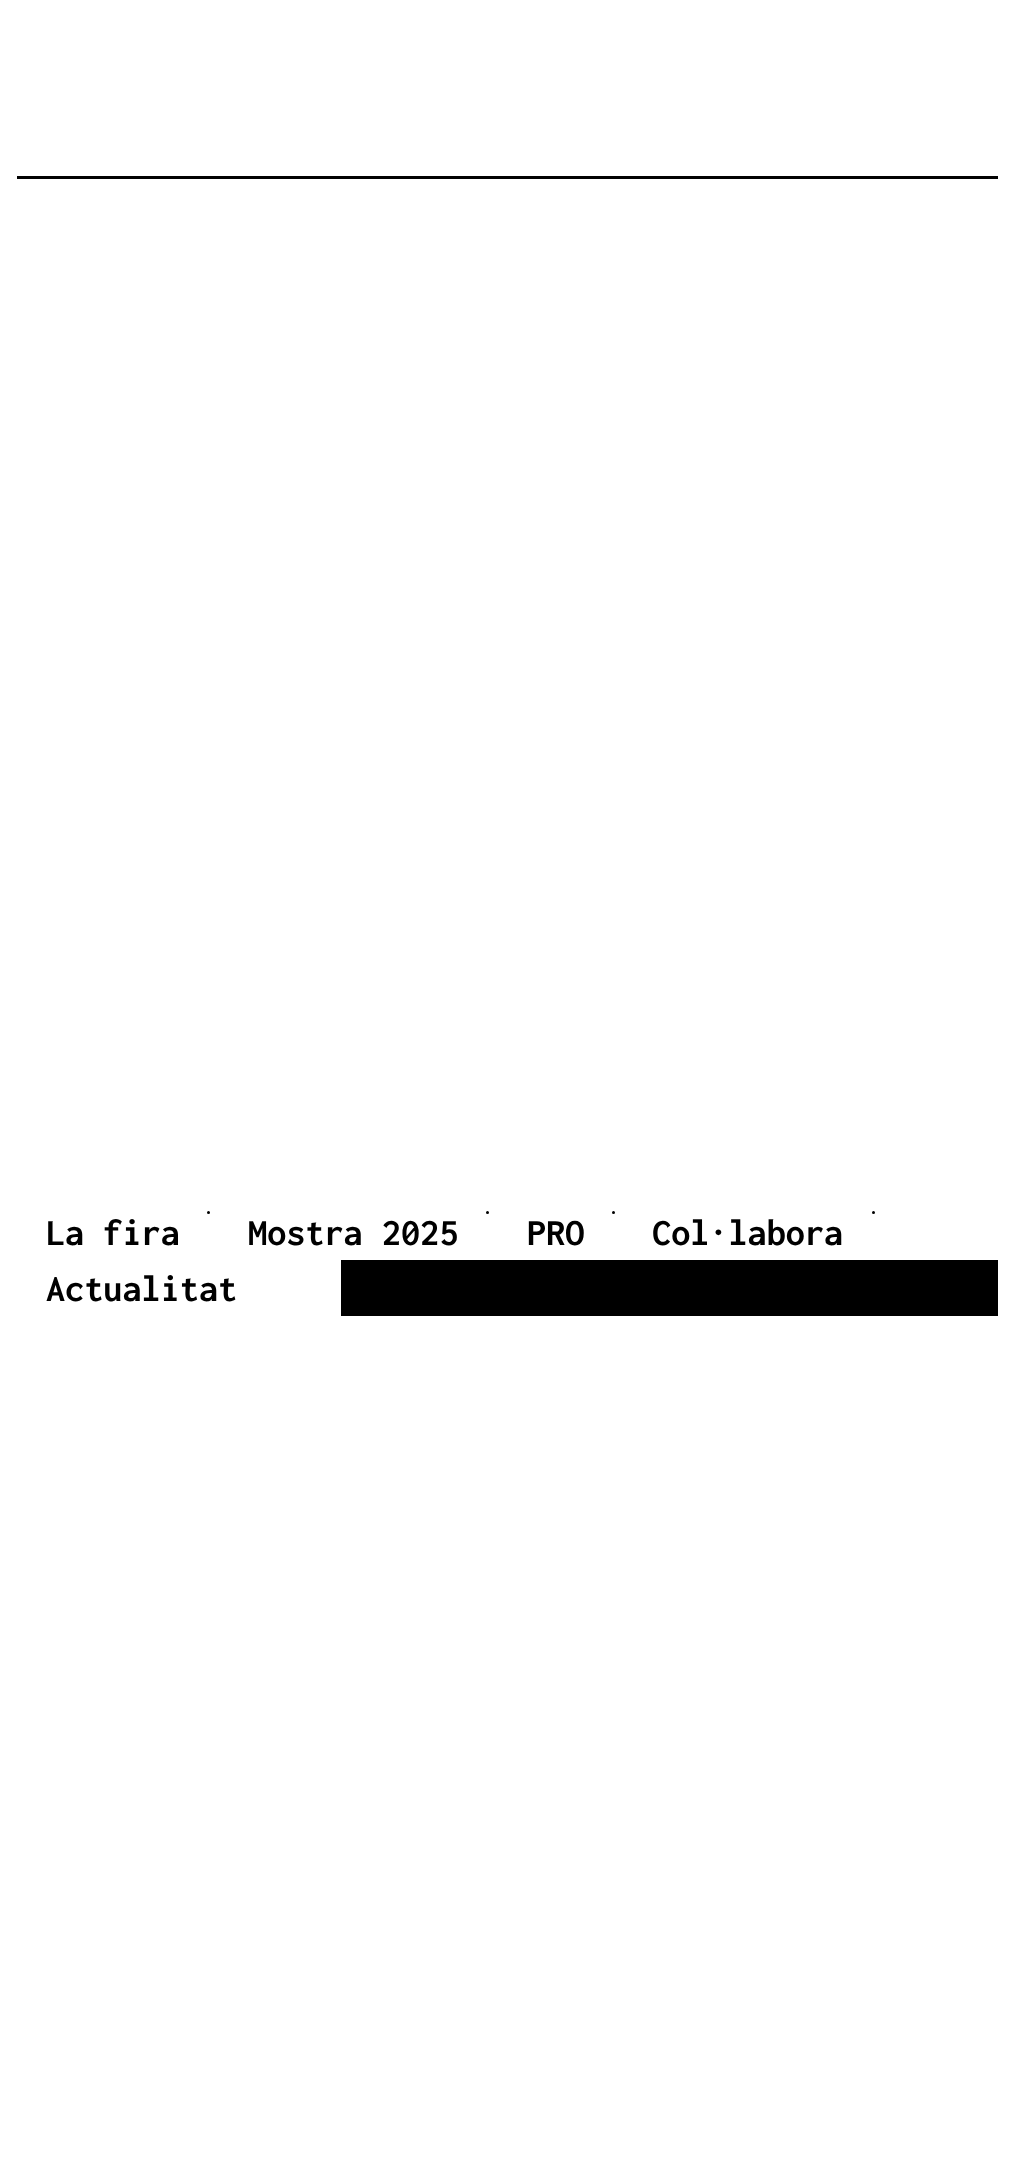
(async () => {
    const canvas = document.querySelector("canvas");
    canvas.width = 1013;
    canvas.height = 2166;
    const context = canvas.getContext("2d");
    context.miterLimit = 4;
    context.fontKerning = "normal";
    function write(s, x, y, font, color) {
        context.font = font;
        context.fillStyle = color;
        context.fillText(s, x, y);
    }
    function block(x, y, w, h, color) {
        context.fillStyle = color;
        context.fillRect(x, y, w, h);
    }

    block(0, 0, 1013, 2166, "rgb(255, 255, 255)");
    block(17, 176, 981, 3, "rgb(2, 2, 2)");
    context.fillStyle = "rgb(0, 0, 0)";
    context.beginPath();
    context.arc(208.5, 1212.5, 1.5, 0, Math.PI * 2);
    context.fill();
    write("La fira", 46, 1245, "bold 38.25px Inconsolata", "rgb(0, 0, 0)");
    context.beginPath();
    context.arc(487.5, 1212.5, 1.5, 0, Math.PI * 2);
    context.fill();
    write("Mostra 2025", 248, 1245, "bold 38.25px Inconsolata", "rgb(0, 0, 0)");
    context.beginPath();
    context.arc(613.5, 1212.5, 1.5, 0, Math.PI * 2);
    context.fill();
    write("PRO", 527, 1245, "bold 38.25px Inconsolata", "rgb(0, 0, 0)");
    context.beginPath();
    context.arc(873.5, 1212.5, 1.5, 0, Math.PI * 2);
    context.fill();
    write("Col·labora", 652, 1245, "bold 38.25px Inconsolata", "rgb(0, 0, 0)");
    write("Actualitat", 46, 1301, "bold 38.25px Inconsolata", "rgb(0, 0, 0)");
    block(341, 1260, 657, 56, "rgb(0, 0, 0)");
})();
